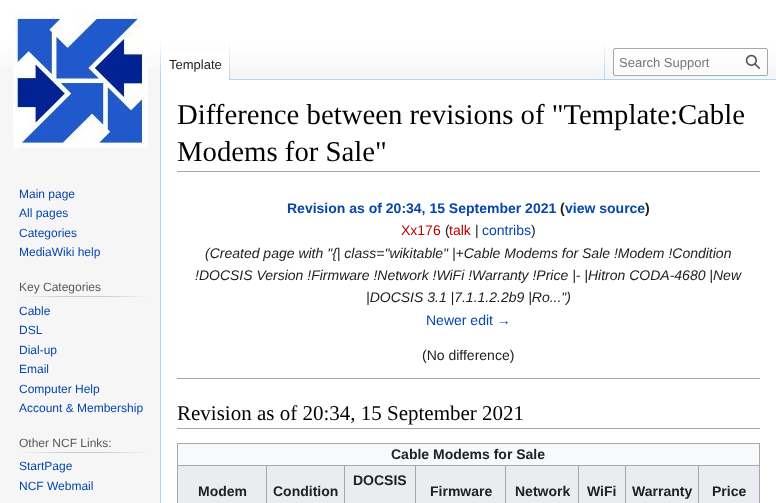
(async () => {
    const canvas = document.querySelector("canvas");
    canvas.width = 776;
    canvas.height = 503;
    const context = canvas.getContext("2d");
    context.miterLimit = 4;
    context.fontKerning = "normal";
    function write(s, x, y, font, color) {
        context.font = font;
        context.fillStyle = color;
        context.fillText(s, x, y);
    }
    function block(x, y, w, h, color) {
        context.fillStyle = color;
        context.fillRect(x, y, w, h);
    }
    async function photo(src, x, y, w, h) {
        const img = new Image();
        img.src = src;
        await img.decode();
        context.drawImage(img, x, y, w, h);
    }
    let gradient;

    block(0, 0, 776, 503, "rgb(246, 246, 246)");
    gradient = context.createLinearGradient(388, 0, 388, 80);
    gradient.addColorStop(0.5, "rgb(255, 255, 255)");
    gradient.addColorStop(1, "rgb(246, 246, 246)");
    context.fillStyle = gradient;
    context.fillRect(0, 0, 776, 69);
    block(160, 79, 1, 424, "rgb(167, 215, 249)");
    gradient = context.createLinearGradient(161, 40, 161, 80);
    gradient.addColorStop(0, "rgba(167, 215, 249, 0)");
    gradient.addColorStop(1, "rgb(167, 215, 249)");
    context.fillStyle = gradient;
    context.fillRect(160, 40, 1, 40);
    block(161, 51, 68, 29, "rgb(255, 255, 255)");
    gradient = context.createLinearGradient(230, 40, 230, 80);
    gradient.addColorStop(0, "rgb(255, 255, 255)");
    gradient.addColorStop(1, "rgb(167, 215, 249)");
    context.fillStyle = gradient;
    context.fillRect(229, 40, 1, 40);
    write("Template", 169, 69, "13px Liberation Sans", "rgb(32, 33, 34)");
    block(230, 79, 546, 1, "rgb(167, 215, 249)");
    gradient = context.createLinearGradient(605, 40, 605, 80);
    gradient.addColorStop(0, "rgba(167, 215, 249, 0)");
    gradient.addColorStop(1, "rgb(167, 215, 249)");
    context.fillStyle = gradient;
    context.fillRect(604, 40, 1, 40);
    context.fillStyle = "rgba(255, 255, 255, 0.5)";
    context.beginPath();
    context.roundRect(613.5, 48.5, 154, 27, 1.5);
    context.fill();
    context.strokeStyle = "rgb(162, 169, 177)";
    context.stroke();
    write("Search Support", 619, 67, "13px Liberation Sans", "rgb(114, 119, 125)");
    await photo("media/1.png", 745, 54, 15, 15);
    await photo("media/2.png", 13, 13, 135, 135);
    write("Main page", 19, 198, "12px Liberation Sans", "rgb(6, 69, 173)");
    write("All pages", 19, 217, "12px Liberation Sans", "rgb(6, 69, 173)");
    write("Categories", 19, 237, "12px Liberation Sans", "rgb(6, 69, 173)");
    write("MediaWiki help", 19, 256, "12px Liberation Sans", "rgb(6, 69, 173)");
    gradient = context.createLinearGradient(19, 297, 150, 297);
    gradient.addColorStop(0, "rgb(246, 246, 246)");
    gradient.addColorStop(0.33, "rgb(200, 204, 209)");
    gradient.addColorStop(0.66, "rgb(200, 204, 209)");
    gradient.addColorStop(1, "rgb(246, 246, 246)");
    context.fillStyle = gradient;
    context.fillRect(19, 296, 131, 1);
    write("Key Categories", 19, 291, "12px Liberation Sans", "rgb(84, 89, 93)");
    write("Cable", 19, 315, "12px Liberation Sans", "rgb(6, 69, 173)");
    write("DSL", 19, 334, "12px Liberation Sans", "rgb(6, 69, 173)");
    write("Dial-up", 19, 354, "12px Liberation Sans", "rgb(6, 69, 173)");
    write("Email", 19, 373, "12px Liberation Sans", "rgb(6, 69, 173)");
    write("Computer Help", 19, 393, "12px Liberation Sans", "rgb(6, 69, 173)");
    write("Account & Membership", 19, 412, "12px Liberation Sans", "rgb(6, 69, 173)");
    gradient = context.createLinearGradient(19, 453, 150, 453);
    gradient.addColorStop(0, "rgb(246, 246, 246)");
    gradient.addColorStop(0.33, "rgb(200, 204, 209)");
    gradient.addColorStop(0.66, "rgb(200, 204, 209)");
    gradient.addColorStop(1, "rgb(246, 246, 246)");
    context.fillStyle = gradient;
    context.fillRect(19, 452, 131, 1);
    write("Other NCF Links:", 19, 447, "12px Liberation Sans", "rgb(84, 89, 93)");
    write("StartPage", 19, 470, "12px Liberation Sans", "rgb(6, 69, 173)");
    write("NCF Webmail", 19, 490, "12px Liberation Sans", "rgb(6, 69, 173)");
    block(161, 80, 615, 423, "rgb(255, 255, 255)");
    block(177, 171, 583, 1, "rgb(162, 169, 177)");
    write("Difference between revisions of \"Template:Cable", 177, 124, "28.75px Liberation Serif", "rgb(0, 0, 0)");
    write("Modems for Sale\"", 177, 161, "28.75px Liberation Serif", "rgb(0, 0, 0)");
    write("Revision as of 20:34, 15 September 2021", 287, 213, "bold 14px Liberation Sans", "rgb(6, 69, 173)");
    write("(", 560, 213, "bold 14px Liberation Sans", "rgb(32, 33, 34)");
    write("view source", 565, 213, "bold 14px Liberation Sans", "rgb(6, 69, 173)");
    write(")", 645, 213, "bold 14px Liberation Sans", "rgb(32, 33, 34)");
    write("Xx176", 401, 235, "14px Liberation Sans", "rgb(186, 0, 0)");
    write("(", 445, 235, "14px Liberation Sans", "rgb(32, 33, 34)");
    write("talk", 449, 235, "14px Liberation Sans", "rgb(186, 0, 0)");
    write("|", 475, 235, "14px Liberation Sans", "rgb(32, 33, 34)");
    write("contribs", 482, 235, "14px Liberation Sans", "rgb(6, 69, 173)");
    write(")", 531, 235, "14px Liberation Sans", "rgb(32, 33, 34)");
    write("(Created page with \"{| class=\"wikitable\" |+Cable Modems for Sale !Modem !Condition", 205, 258, "italic 14px Liberation Sans", "rgb(32, 33, 34)");
    write("!DOCSIS Version !Firmware !Network !WiFi !Warranty !Price |- |Hitron CODA-4680 |New", 195, 280, "italic 14px Liberation Sans", "rgb(32, 33, 34)");
    write("|DOCSIS 3.1 |7.1.1.2.2b9 |Ro...\")", 366, 302, "italic 14px Liberation Sans", "rgb(32, 33, 34)");
    write("Newer edit →", 426, 325, "14px Liberation Sans", "rgb(6, 69, 173)");
    write("(No difference)", 422, 360, "14px Liberation Sans", "rgb(32, 33, 34)");
    block(177, 378, 583, 1, "rgb(162, 169, 177)");
    block(177, 428, 583, 1, "rgb(162, 169, 177)");
    write("Revision as of 20:34, 15 September 2021", 177, 420, "21px Liberation Serif", "rgb(0, 0, 0)");
    block(178, 444, 581, 21, "rgb(248, 249, 250)");
    block(177, 443, 583, 1, "rgb(162, 169, 177)");
    block(759, 443, 1, 60, "rgb(162, 169, 177)");
    block(177, 443, 1, 60, "rgb(162, 169, 177)");
    write("Cable Modems for Sale", 391, 459, "bold 14px Liberation Sans", "rgb(32, 33, 34)");
    block(345, 466, 70, 37, "rgb(234, 236, 240)");
    block(698, 465, 62, 1, "rgb(162, 169, 177)");
    block(698, 465, 1, 38, "rgb(162, 169, 177)");
    block(625, 465, 74, 1, "rgb(162, 169, 177)");
    block(625, 465, 1, 38, "rgb(162, 169, 177)");
    block(578, 465, 48, 1, "rgb(162, 169, 177)");
    block(578, 465, 1, 38, "rgb(162, 169, 177)");
    block(505, 465, 74, 1, "rgb(162, 169, 177)");
    block(505, 465, 1, 38, "rgb(162, 169, 177)");
    block(415, 465, 91, 1, "rgb(162, 169, 177)");
    block(415, 465, 1, 38, "rgb(162, 169, 177)");
    block(344, 465, 72, 1, "rgb(162, 169, 177)");
    block(344, 465, 1, 38, "rgb(162, 169, 177)");
    write("DOCSIS", 353, 485, "bold 14px Liberation Sans", "rgb(32, 33, 34)");
    block(178, 466, 88, 37, "rgb(234, 236, 240)");
    block(266, 465, 79, 1, "rgb(162, 169, 177)");
    block(266, 465, 1, 38, "rgb(162, 169, 177)");
    block(177, 465, 90, 1, "rgb(162, 169, 177)");
    write("Modem", 198, 496, "bold 14px Liberation Sans", "rgb(32, 33, 34)");
    block(267, 466, 77, 37, "rgb(234, 236, 240)");
    write("Condition", 273, 496, "bold 14px Liberation Sans", "rgb(32, 33, 34)");
    block(416, 466, 89, 37, "rgb(234, 236, 240)");
    write("Firmware", 430, 496, "bold 14px Liberation Sans", "rgb(32, 33, 34)");
    block(506, 466, 72, 37, "rgb(234, 236, 240)");
    write("Network", 515, 496, "bold 14px Liberation Sans", "rgb(32, 33, 34)");
    block(579, 466, 46, 37, "rgb(234, 236, 240)");
    write("WiFi", 587, 496, "bold 14px Liberation Sans", "rgb(32, 33, 34)");
    block(626, 466, 72, 37, "rgb(234, 236, 240)");
    write("Warranty", 632, 496, "bold 14px Liberation Sans", "rgb(32, 33, 34)");
    block(699, 466, 60, 37, "rgb(234, 236, 240)");
    write("Price", 712, 496, "bold 14px Liberation Sans", "rgb(32, 33, 34)");
})();
